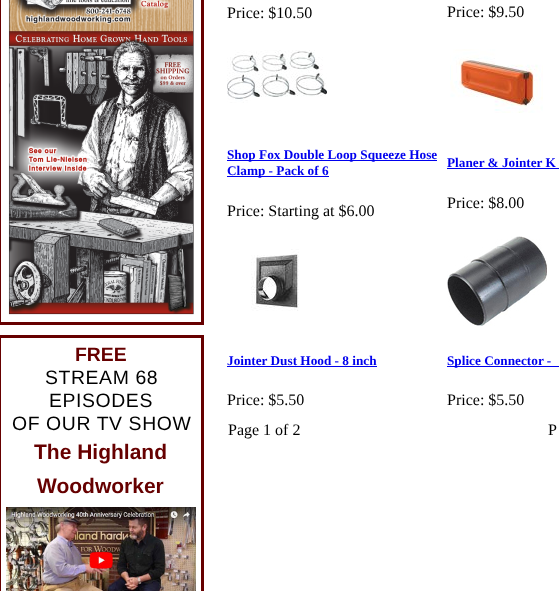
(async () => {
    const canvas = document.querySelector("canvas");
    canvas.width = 559;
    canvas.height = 591;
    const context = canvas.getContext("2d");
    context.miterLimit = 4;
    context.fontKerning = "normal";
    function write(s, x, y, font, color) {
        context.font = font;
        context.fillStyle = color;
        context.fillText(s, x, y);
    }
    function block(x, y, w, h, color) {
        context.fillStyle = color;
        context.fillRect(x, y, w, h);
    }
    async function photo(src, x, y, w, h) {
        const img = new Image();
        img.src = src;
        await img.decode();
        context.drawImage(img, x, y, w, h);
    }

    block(0, 0, 559, 591, "rgb(255, 255, 255)");
    context.strokeStyle = "rgb(102, 0, 0)";
    context.lineWidth = 3;
    context.strokeRect(-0.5, -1.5, 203, 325);
    await photo("media/1.png", 8, 0, 186, 315);
    context.strokeRect(-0.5, 336.5, 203, 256);
    write("FREE", 75, 361, "bold 19.4px Liberation Sans", "rgb(102, 0, 0)");
    context.letterSpacing = "0.6px";
    write("STREAM 68", 45, 384, "19.4px Liberation Sans", "rgb(0, 0, 0)");
    write("EPISODES", 49, 407, "19.4px Liberation Sans", "rgb(0, 0, 0)");
    write("OF OUR TV SHOW", 12, 430, "19.4px Liberation Sans", "rgb(0, 0, 0)");
    context.letterSpacing = "0px";
    write("The Highland", 34, 459, "bold 21px Liberation Sans", "rgb(102, 0, 0)");
    write("Woodworker", 37, 493, "bold 21px Liberation Sans", "rgb(102, 0, 0)");
    await photo("media/2.png", 6, 507, 190, 84);
    write("Price: $10.50", 227, 18, "16px Liberation Serif", "rgb(0, 0, 0)");
    write("Price: $9.50", 447, 17, "16px Liberation Serif", "rgb(0, 0, 0)");
    await photo("media/3.png", 227, 50, 100, 53);
    block(227, 160, 210, 1, "rgb(0, 0, 238)");
    write("Shop Fox Double Loop Squeeze Hose", 227, 159, "bold 13.25px Liberation Serif", "rgb(0, 0, 238)");
    block(227, 176, 102, 1, "rgb(0, 0, 238)");
    write("Clamp - Pack of 6", 227, 175, "bold 13.25px Liberation Serif", "rgb(0, 0, 238)");
    write("Price: Starting at $6.00", 227, 216, "16px Liberation Serif", "rgb(0, 0, 0)");
    await photo("media/4.png", 450, 49, 93, 64);
    write("Planer & Jointer K", 447, 167, "bold 13.25px Liberation Serif", "rgb(0, 0, 238)");
    block(447, 168, 112, 1, "rgb(0, 0, 238)");
    write("Price: $8.00", 447, 208, "16px Liberation Serif", "rgb(0, 0, 0)");
    await photo("media/5.png", 251, 249, 48, 62);
    write("Jointer Dust Hood - 8 inch", 227, 365, "bold 13.25px Liberation Serif", "rgb(0, 0, 238)");
    block(227, 366, 150, 1, "rgb(0, 0, 238)");
    write("Price: $5.50", 227, 405, "16px Liberation Serif", "rgb(0, 0, 0)");
    await photo("media/6.png", 447, 236, 100, 90);
    block(447, 366, 112, 1, "rgb(0, 0, 238)");
    write("Splice Connector -", 447, 365, "bold 13.25px Liberation Serif", "rgb(0, 0, 238)");
    write("Price: $5.50", 447, 405, "16px Liberation Serif", "rgb(0, 0, 0)");
    write("Page 1 of 2", 228, 435, "16px Liberation Serif", "rgb(0, 0, 0)");
    write("P", 548, 435, "16px Liberation Serif", "rgb(0, 0, 0)");
})();
